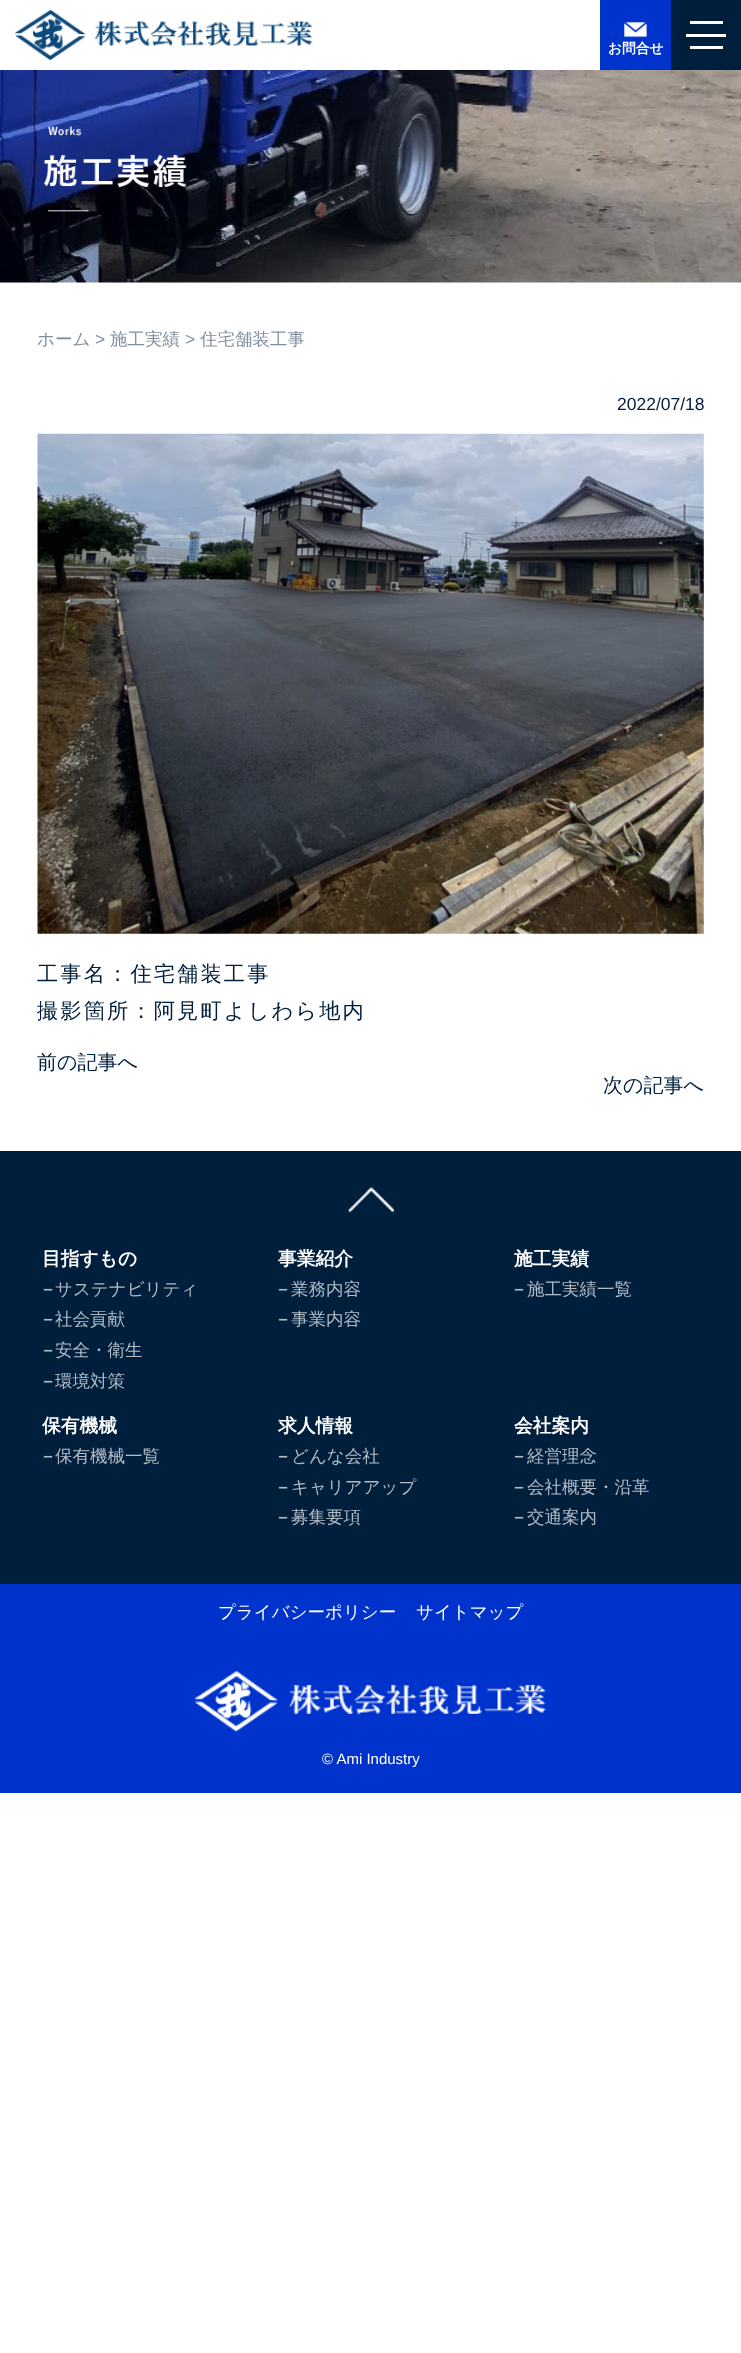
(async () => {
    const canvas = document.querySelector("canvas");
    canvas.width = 741;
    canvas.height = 2353;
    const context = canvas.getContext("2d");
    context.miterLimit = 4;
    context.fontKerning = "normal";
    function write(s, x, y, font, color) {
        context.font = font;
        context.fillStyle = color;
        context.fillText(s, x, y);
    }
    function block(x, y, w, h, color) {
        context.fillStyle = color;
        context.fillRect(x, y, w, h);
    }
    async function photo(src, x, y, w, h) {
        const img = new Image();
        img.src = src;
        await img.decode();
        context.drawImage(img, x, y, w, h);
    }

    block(0, 0, 741, 2353, "rgb(255, 255, 255)");
    await photo("media/1.png", 15, 10, 298, 50);
    block(600, 0, 71, 70, "rgb(0, 51, 204)");
    await photo("media/2.png", 624, 22, 24, 16);
    write("お問合せ", 608, 53, "bold 13.75px WenQuanYi Zen Hei", "rgb(255, 255, 255)");
    block(671, 0, 70, 70, "rgb(0, 31, 61)");
    block(686, 34, 40, 3, "rgb(255, 255, 255)");
    block(690, 21, 33, 3, "rgb(255, 255, 255)");
    block(690, 46, 33, 3, "rgb(255, 255, 255)");
    await photo("media/3.png", 0, 70, 741, 213);
    await photo("media/4.png", 43, 126, 144, 86);
    write("ホーム", 37, 345, "500 17.5px WenQuanYi Zen Hei", "rgb(128, 143, 158)");
    write(">", 95, 345, "17.5px Liberation Sans", "rgb(128, 143, 158)");
    write("施工実績", 110, 345, "500 17.5px WenQuanYi Zen Hei", "rgb(128, 143, 158)");
    write(">", 185, 345, "17.5px Liberation Sans", "rgb(128, 143, 158)");
    write("住宅舗装工事", 200, 345, "500 17.5px WenQuanYi Zen Hei", "rgb(128, 143, 158)");
    write("2022/07/18", 617, 410, "17.5px Liberation Sans", "rgb(0, 31, 61)");
    await photo("media/5.png", 37, 433, 667, 501);
    context.letterSpacing = "2.1px";
    write("工事名：住宅舗装工事", 37, 981, "500 21.25px WenQuanYi Zen Hei", "rgb(0, 31, 61)");
    write("撮影箇所：阿見町よしわら地内", 37, 1018, "500 21.25px WenQuanYi Zen Hei", "rgb(0, 31, 61)");
    context.letterSpacing = "0px";
    write("前の記事へ", 37, 1069, "500 20px WenQuanYi Zen Hei", "rgb(0, 31, 61)");
    write("次の記事へ", 603, 1092, "500 20px WenQuanYi Zen Hei", "rgb(0, 31, 61)");
    block(0, 1151, 741, 433, "rgb(0, 31, 61)");
    await photo("media/6.png", 348, 1187, 46, 26);
    write("目指すもの", 42, 1265, "bold 18.75px WenQuanYi Zen Hei", "rgb(255, 255, 255)");
    write("－", 39, 1295, "bold 17.5px WenQuanYi Zen Hei", "rgb(178, 188, 197)");
    write("サステナビリティ", 55, 1295, "500 17.5px WenQuanYi Zen Hei", "rgb(178, 188, 197)");
    write("－", 39, 1325, "bold 17.5px WenQuanYi Zen Hei", "rgb(178, 188, 197)");
    write("社会貢献", 55, 1325, "500 17.5px WenQuanYi Zen Hei", "rgb(178, 188, 197)");
    write("－", 39, 1356, "bold 17.5px WenQuanYi Zen Hei", "rgb(178, 188, 197)");
    write("安全・衛生", 55, 1356, "500 17.5px WenQuanYi Zen Hei", "rgb(178, 188, 197)");
    write("－", 39, 1387, "bold 17.5px WenQuanYi Zen Hei", "rgb(178, 188, 197)");
    write("環境対策", 55, 1387, "500 17.5px WenQuanYi Zen Hei", "rgb(178, 188, 197)");
    write("事業紹介", 278, 1265, "bold 18.75px WenQuanYi Zen Hei", "rgb(255, 255, 255)");
    write("－", 274, 1295, "bold 17.5px WenQuanYi Zen Hei", "rgb(178, 188, 197)");
    write("業務内容", 291, 1295, "500 17.5px WenQuanYi Zen Hei", "rgb(178, 188, 197)");
    write("－", 274, 1325, "bold 17.5px WenQuanYi Zen Hei", "rgb(178, 188, 197)");
    write("事業内容", 291, 1325, "500 17.5px WenQuanYi Zen Hei", "rgb(178, 188, 197)");
    write("施工実績", 514, 1265, "bold 18.75px WenQuanYi Zen Hei", "rgb(255, 255, 255)");
    write("－", 510, 1295, "bold 17.5px WenQuanYi Zen Hei", "rgb(178, 188, 197)");
    write("施工実績一覧", 527, 1295, "500 17.5px WenQuanYi Zen Hei", "rgb(178, 188, 197)");
    write("保有機械", 42, 1432, "bold 18.75px WenQuanYi Zen Hei", "rgb(255, 255, 255)");
    write("－", 39, 1462, "bold 17.5px WenQuanYi Zen Hei", "rgb(178, 188, 197)");
    write("保有機械一覧", 55, 1462, "500 17.5px WenQuanYi Zen Hei", "rgb(178, 188, 197)");
    write("求人情報", 278, 1432, "bold 18.75px WenQuanYi Zen Hei", "rgb(255, 255, 255)");
    write("－", 274, 1462, "bold 17.5px WenQuanYi Zen Hei", "rgb(178, 188, 197)");
    write("どんな会社", 291, 1462, "500 17.5px WenQuanYi Zen Hei", "rgb(178, 188, 197)");
    write("－", 274, 1493, "bold 17.5px WenQuanYi Zen Hei", "rgb(178, 188, 197)");
    write("キャリアアップ", 291, 1493, "500 17.5px WenQuanYi Zen Hei", "rgb(178, 188, 197)");
    write("－", 274, 1523, "bold 17.5px WenQuanYi Zen Hei", "rgb(178, 188, 197)");
    write("募集要項", 291, 1523, "500 17.5px WenQuanYi Zen Hei", "rgb(178, 188, 197)");
    write("会社案内", 514, 1432, "bold 18.75px WenQuanYi Zen Hei", "rgb(255, 255, 255)");
    write("－", 510, 1462, "bold 17.5px WenQuanYi Zen Hei", "rgb(178, 188, 197)");
    write("経営理念", 527, 1462, "500 17.5px WenQuanYi Zen Hei", "rgb(178, 188, 197)");
    write("－", 510, 1493, "bold 17.5px WenQuanYi Zen Hei", "rgb(178, 188, 197)");
    write("会社概要・沿革", 527, 1493, "500 17.5px WenQuanYi Zen Hei", "rgb(178, 188, 197)");
    write("－", 510, 1523, "bold 17.5px WenQuanYi Zen Hei", "rgb(178, 188, 197)");
    write("交通案内", 527, 1523, "500 17.5px WenQuanYi Zen Hei", "rgb(178, 188, 197)");
    block(0, 1584, 741, 209, "rgb(0, 51, 204)");
    write("プライバシーポリシー", 218, 1618, "500 17.5px WenQuanYi Zen Hei", "rgb(255, 255, 255)");
    write("サイトマップ", 416, 1618, "500 17.5px WenQuanYi Zen Hei", "rgb(255, 255, 255)");
    await photo("media/7.png", 194, 1671, 353, 61);
    write("© Ami Industry", 322, 1764, "15px Liberation Sans", "rgb(255, 255, 255)");
})();
